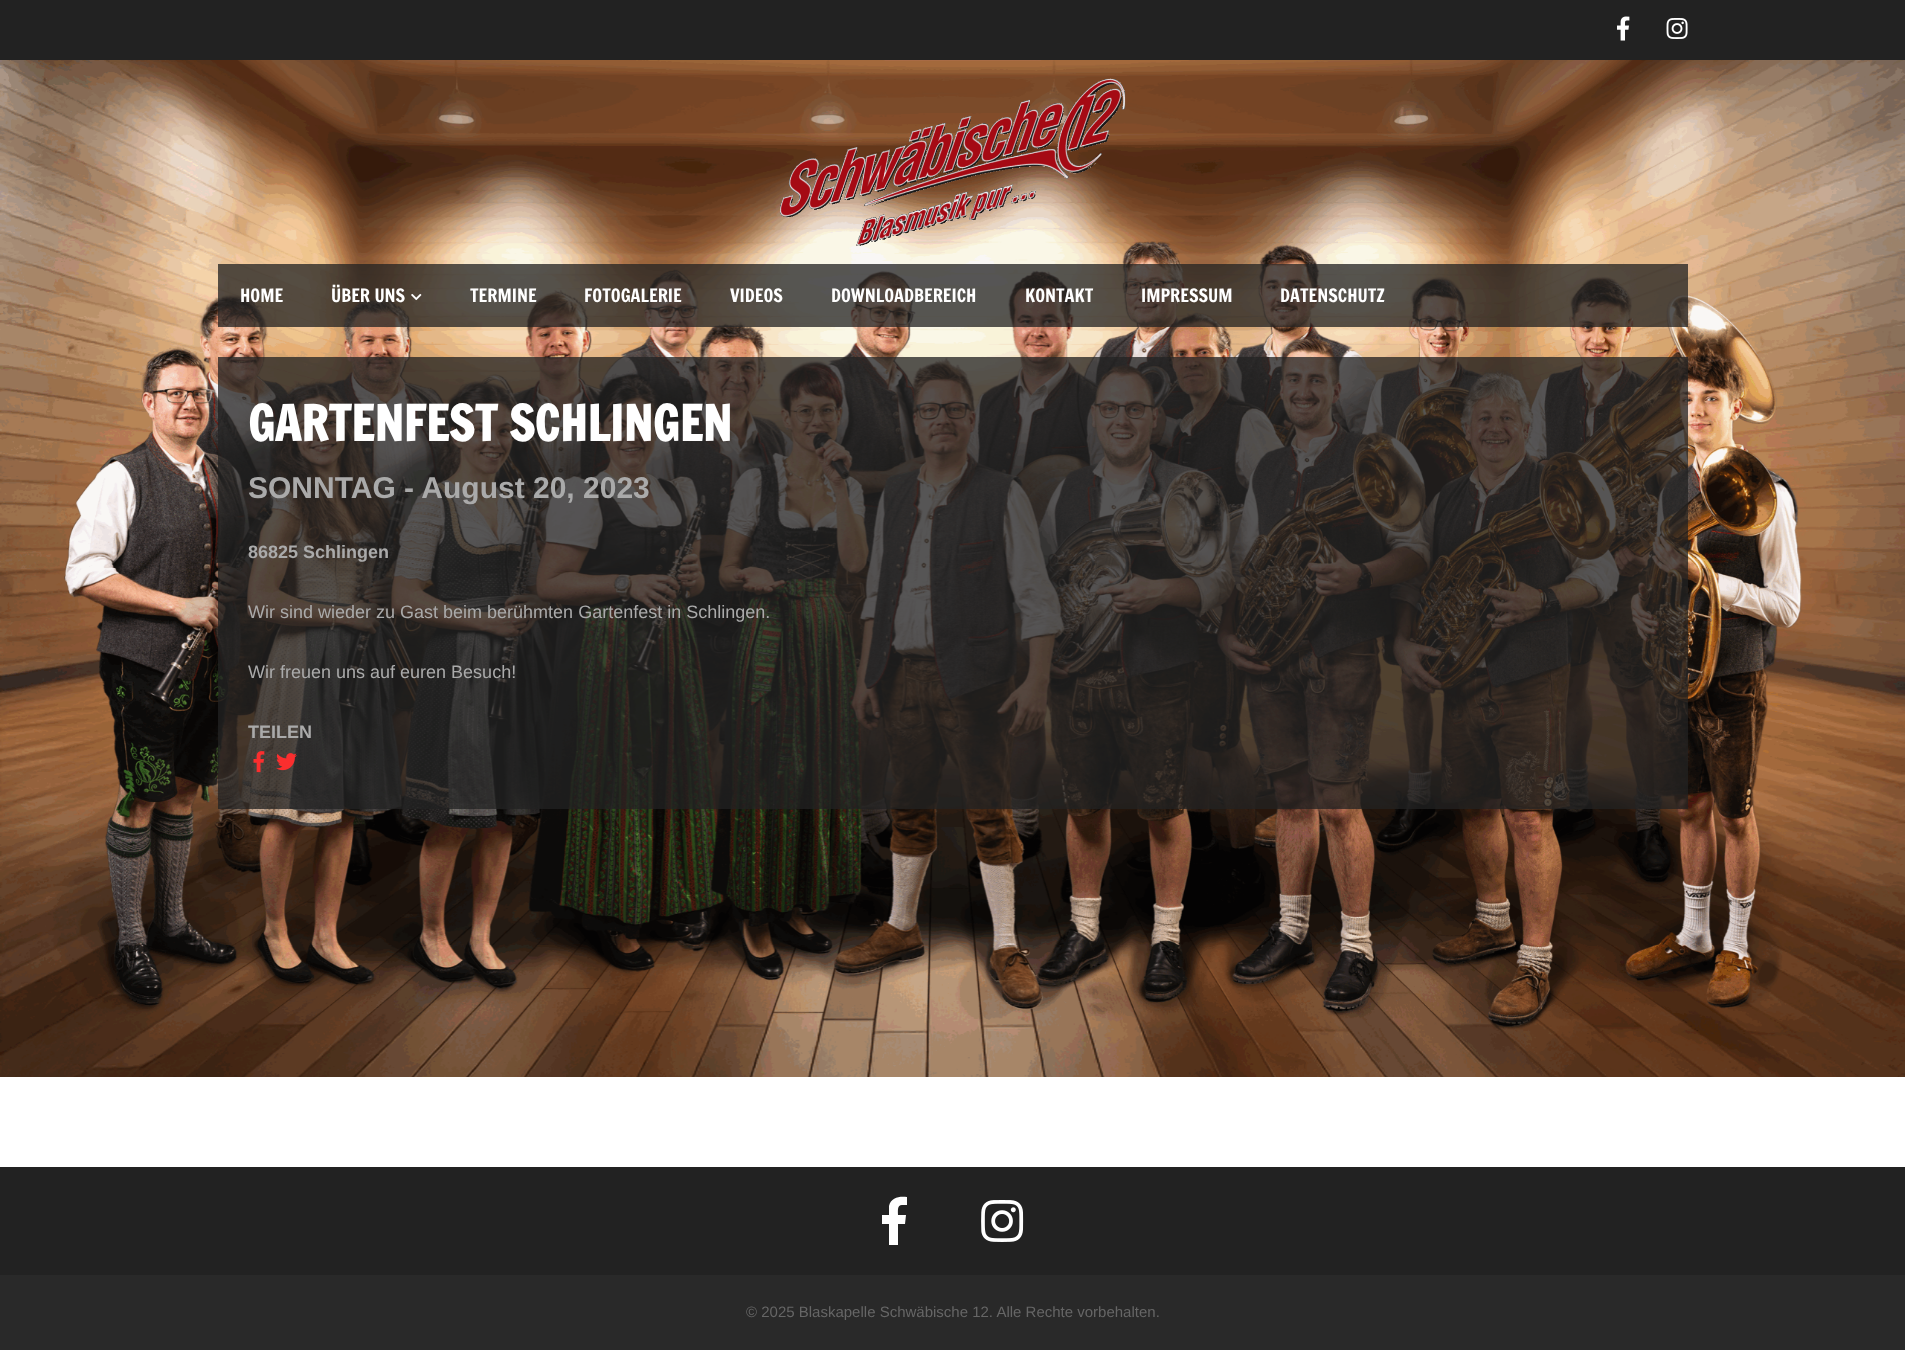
(async () => {
    const canvas = document.querySelector("canvas");
    canvas.width = 1905;
    canvas.height = 1350;
    const context = canvas.getContext("2d");
    context.miterLimit = 4;
    context.fontKerning = "normal";
    function write(s, x, y, font, color) {
        context.font = font;
        context.fillStyle = color;
        context.fillText(s, x, y);
    }
    function block(x, y, w, h, color) {
        context.fillStyle = color;
        context.fillRect(x, y, w, h);
    }
    async function photo(src, x, y, w, h) {
        const img = new Image();
        img.src = src;
        await img.decode();
        context.drawImage(img, x, y, w, h);
    }

    block(0, 0, 1905, 1350, "rgb(255, 255, 255)");
    await photo("media/1.png", 0, 60, 1905, 1017);
    block(0, 0, 1905, 60, "rgb(34, 34, 34)");
    await photo("media/2.png", 1617, 16, 13, 25);
    await photo("media/3.png", 1666, 18, 22, 21);
    await photo("media/4.png", 779, 78, 347, 168);
    block(218, 264, 1470, 63, "rgba(34, 34, 34, 0.76)");
    write("HOME", 240, 302, "18px Francois One", "rgb(255, 255, 255)");
    write("ÜBER UNS", 331, 302, "18px Francois One", "rgb(255, 255, 255)");
    await photo("media/5.png", 411, 293, 11, 8);
    write("TERMINE", 470, 302, "18px Francois One", "rgb(255, 255, 255)");
    write("FOTOGALERIE", 584, 302, "18px Francois One", "rgb(255, 255, 255)");
    write("VIDEOS", 730, 302, "18px Francois One", "rgb(255, 255, 255)");
    write("DOWNLOADBEREICH", 831, 302, "18px Francois One", "rgb(255, 255, 255)");
    write("KONTAKT", 1025, 302, "18px Francois One", "rgb(255, 255, 255)");
    write("IMPRESSUM", 1141, 302, "18px Francois One", "rgb(255, 255, 255)");
    write("DATENSCHUTZ", 1280, 302, "18px Francois One", "rgb(255, 255, 255)");
    block(218, 357, 1470, 452, "rgba(34, 34, 34, 0.76)");
    write("GARTENFEST SCHLINGEN", 248, 441, "bold 48px Francois One", "rgb(255, 255, 255)");
    write("SONNTAG - August 20, 2023", 248, 498, "bold 30px Liberation Sans", "rgb(170, 170, 170)");
    write("86825 Schlingen", 248, 558, "bold 18px Liberation Sans", "rgb(170, 170, 170)");
    write("Wir sind wieder zu Gast beim berühmten Gartenfest in Schlingen.", 248, 618, "18px Liberation Sans", "rgb(170, 170, 170)");
    write("Wir freuen uns auf euren Besuch!", 248, 678, "18px Liberation Sans", "rgb(170, 170, 170)");
    write("TEILEN", 248, 738, "bold 18px Liberation Sans", "rgb(170, 170, 170)");
    await photo("media/6.png", 253, 751, 12, 22);
    await photo("media/7.png", 276, 753, 21, 18);
    block(0, 1167, 1905, 108, "rgb(34, 34, 34)");
    context.fillStyle = "rgb(255, 255, 255)";
    context.beginPath();
    context.moveTo(902, 1205);
    context.bezierCurveTo(897, 1205, 898, 1211, 898, 1215);
    context.lineTo(906, 1215);
    context.lineTo(905, 1224);
    context.lineTo(898, 1224);
    context.lineTo(898, 1245);
    context.lineTo(889, 1245);
    context.lineTo(889, 1224);
    context.lineTo(882, 1224);
    context.lineTo(882, 1215);
    context.lineTo(889, 1215);
    context.lineTo(889, 1206);
    context.bezierCurveTo(891, 1197, 900, 1196, 907, 1197);
    context.lineTo(907, 1205);
    context.closePath();
    context.fill();
    await photo("media/8.png", 981, 1200, 43, 42);
    block(0, 1275, 1905, 75, "rgb(41, 41, 41)");
    write("© 2025 Blaskapelle Schwäbische 12. Alle Rechte vorbehalten.", 746, 1317, "15px Liberation Sans", "rgb(102, 102, 102)");
})();
